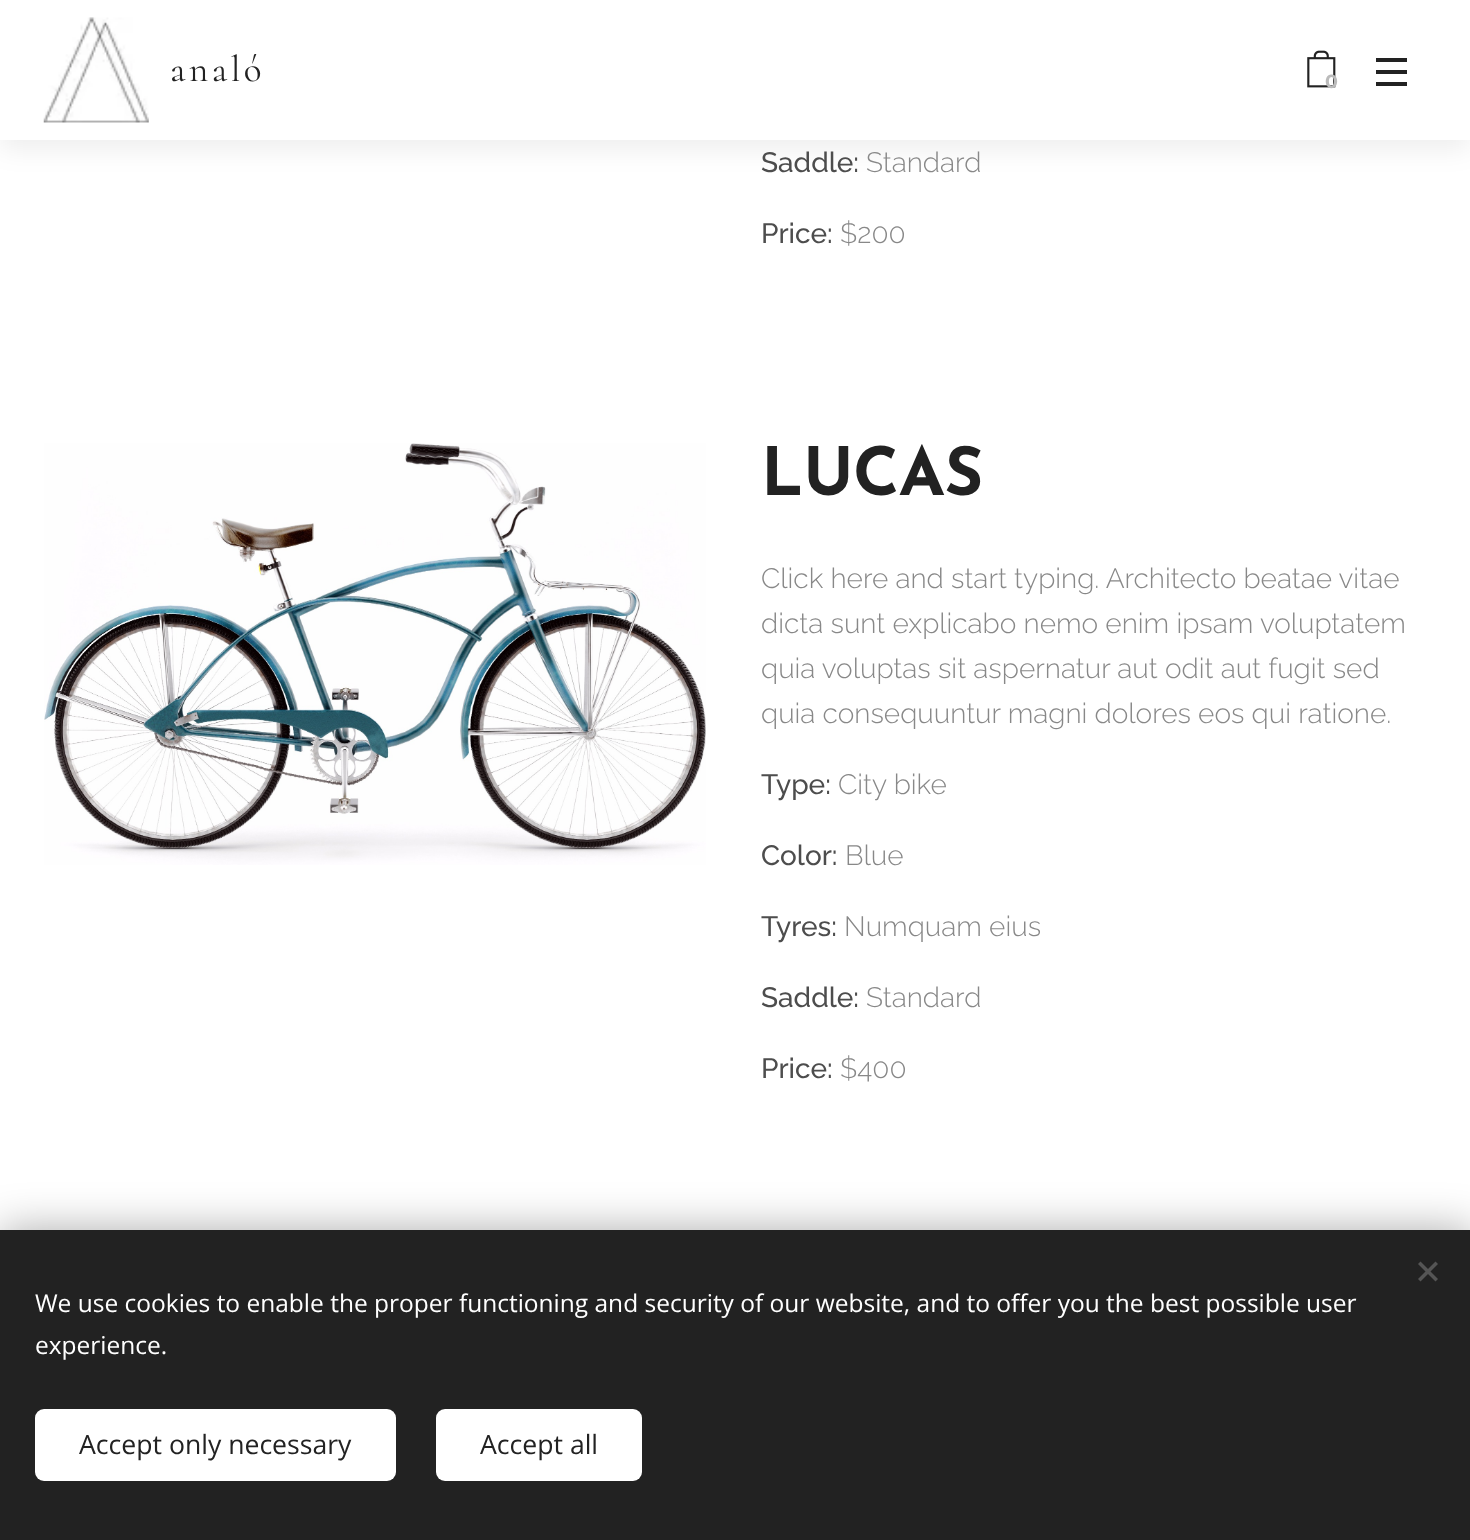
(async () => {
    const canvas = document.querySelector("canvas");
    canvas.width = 1470;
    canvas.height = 1540;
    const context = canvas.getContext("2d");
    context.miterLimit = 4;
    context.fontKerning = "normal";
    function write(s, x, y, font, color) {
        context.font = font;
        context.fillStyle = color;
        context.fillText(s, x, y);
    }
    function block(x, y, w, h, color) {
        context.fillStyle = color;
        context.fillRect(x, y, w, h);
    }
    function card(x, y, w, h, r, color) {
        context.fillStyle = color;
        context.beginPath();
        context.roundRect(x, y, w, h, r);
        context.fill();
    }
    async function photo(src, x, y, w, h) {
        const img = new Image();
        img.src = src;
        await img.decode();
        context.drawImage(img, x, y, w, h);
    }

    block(0, 0, 1470, 1540, "rgb(255, 255, 255)");
    context.fillStyle = "rgba(0, 0, 0, 0.07)";
    context.filter = "blur(13px)";
    context.beginPath();
    context.rect(0, 9, 1470, 140);
    context.fill();
    context.filter = "none";
    block(0, 0, 1470, 140, "rgb(255, 255, 255)");
    await photo("media/1.png", 43, 17, 106, 106);
    context.letterSpacing = "3.5px";
    write("analó", 170, 81, "37px Cormorant", "rgb(34, 34, 34)");
    await photo("media/2.png", 1307, 50, 29, 38);
    context.letterSpacing = "0px";
    write("0", 1325, 88, "bold 19px Montserrat", "rgb(187, 187, 187)");
    block(1376, 70, 31, 4, "rgb(34, 34, 34)");
    block(1376, 58, 31, 4, "rgb(34, 34, 34)");
    block(1376, 82, 31, 4, "rgb(34, 34, 34)");
    write("Saddle:", 761, 172, "500 28px Raleway", "rgb(77, 77, 77)");
    write("Standard", 866, 172, "300 28px Raleway", "rgb(136, 136, 136)");
    write("Price:", 761, 243, "500 28px Raleway", "rgb(77, 77, 77)");
    write("$200", 840, 243, "300 28px Raleway", "rgb(136, 136, 136)");
    await photo("media/3.png", 44, 443, 662, 422);
    context.letterSpacing = "-0.5px";
    write("LUCAS", 761, 495, "bold 66.5px Josefin Sans", "rgb(34, 34, 34)");
    context.letterSpacing = "0px";
    write("Click here and start typing. Architecto beatae vitae", 761, 588, "300 28px Raleway", "rgb(136, 136, 136)");
    write("dicta sunt explicabo nemo enim ipsam voluptatem", 761, 633, "300 28px Raleway", "rgb(136, 136, 136)");
    write("quia voluptas sit aspernatur aut odit aut fugit sed", 761, 678, "300 28px Raleway", "rgb(136, 136, 136)");
    write("quia consequuntur magni dolores eos qui ratione.", 761, 723, "300 28px Raleway", "rgb(136, 136, 136)");
    write("Type:", 761, 794, "500 28px Raleway", "rgb(77, 77, 77)");
    write("City bike", 838, 794, "300 28px Raleway", "rgb(136, 136, 136)");
    write("Color:", 761, 865, "500 28px Raleway", "rgb(77, 77, 77)");
    write("Blue", 845, 865, "300 28px Raleway", "rgb(136, 136, 136)");
    write("Tyres:", 761, 936, "500 28px Raleway", "rgb(77, 77, 77)");
    write("Numquam eius", 844, 936, "300 28px Raleway", "rgb(136, 136, 136)");
    write("Saddle:", 761, 1007, "500 28px Raleway", "rgb(77, 77, 77)");
    write("Standard", 866, 1007, "300 28px Raleway", "rgb(136, 136, 136)");
    write("Price:", 761, 1078, "500 28px Raleway", "rgb(77, 77, 77)");
    write("$400", 840, 1078, "300 28px Raleway", "rgb(136, 136, 136)");
    context.fillStyle = "rgba(0, 0, 0, 0.33)";
    context.filter = "blur(22px)";
    context.beginPath();
    context.rect(0, 1230, 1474, 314);
    context.fill();
    context.filter = "none";
    block(0, 1230, 1470, 310, "rgb(34, 34, 34)");
    context.fillStyle = "rgb(85, 85, 85)";
    context.beginPath();
    context.moveTo(1418, 1279);
    context.lineTo(1435.5, 1261.5);
    context.lineTo(1438, 1264);
    context.lineTo(1420.5, 1281.5);
    context.closePath();
    context.fill();
    context.beginPath();
    context.moveTo(1420.5, 1261.5);
    context.lineTo(1438, 1279);
    context.lineTo(1435.5, 1281.5);
    context.lineTo(1418, 1264);
    context.closePath();
    context.fill();
    write("We use cookies to enable the proper functioning and security of our website, and to offer you the best possible user", 35, 1312, "24.5px Open Sans", "rgb(255, 255, 255)");
    write("experience.", 35, 1354, "24.5px Open Sans", "rgb(255, 255, 255)");
    card(35, 1409, 361, 72, 9, "rgb(255, 255, 255)");
    write("Accept only necessary", 79, 1454, "26.6px Open Sans", "rgb(34, 34, 34)");
    card(436, 1409, 206, 72, 9, "rgb(255, 255, 255)");
    write("Accept all", 480, 1454, "26.6px Open Sans", "rgb(34, 34, 34)");
})();
